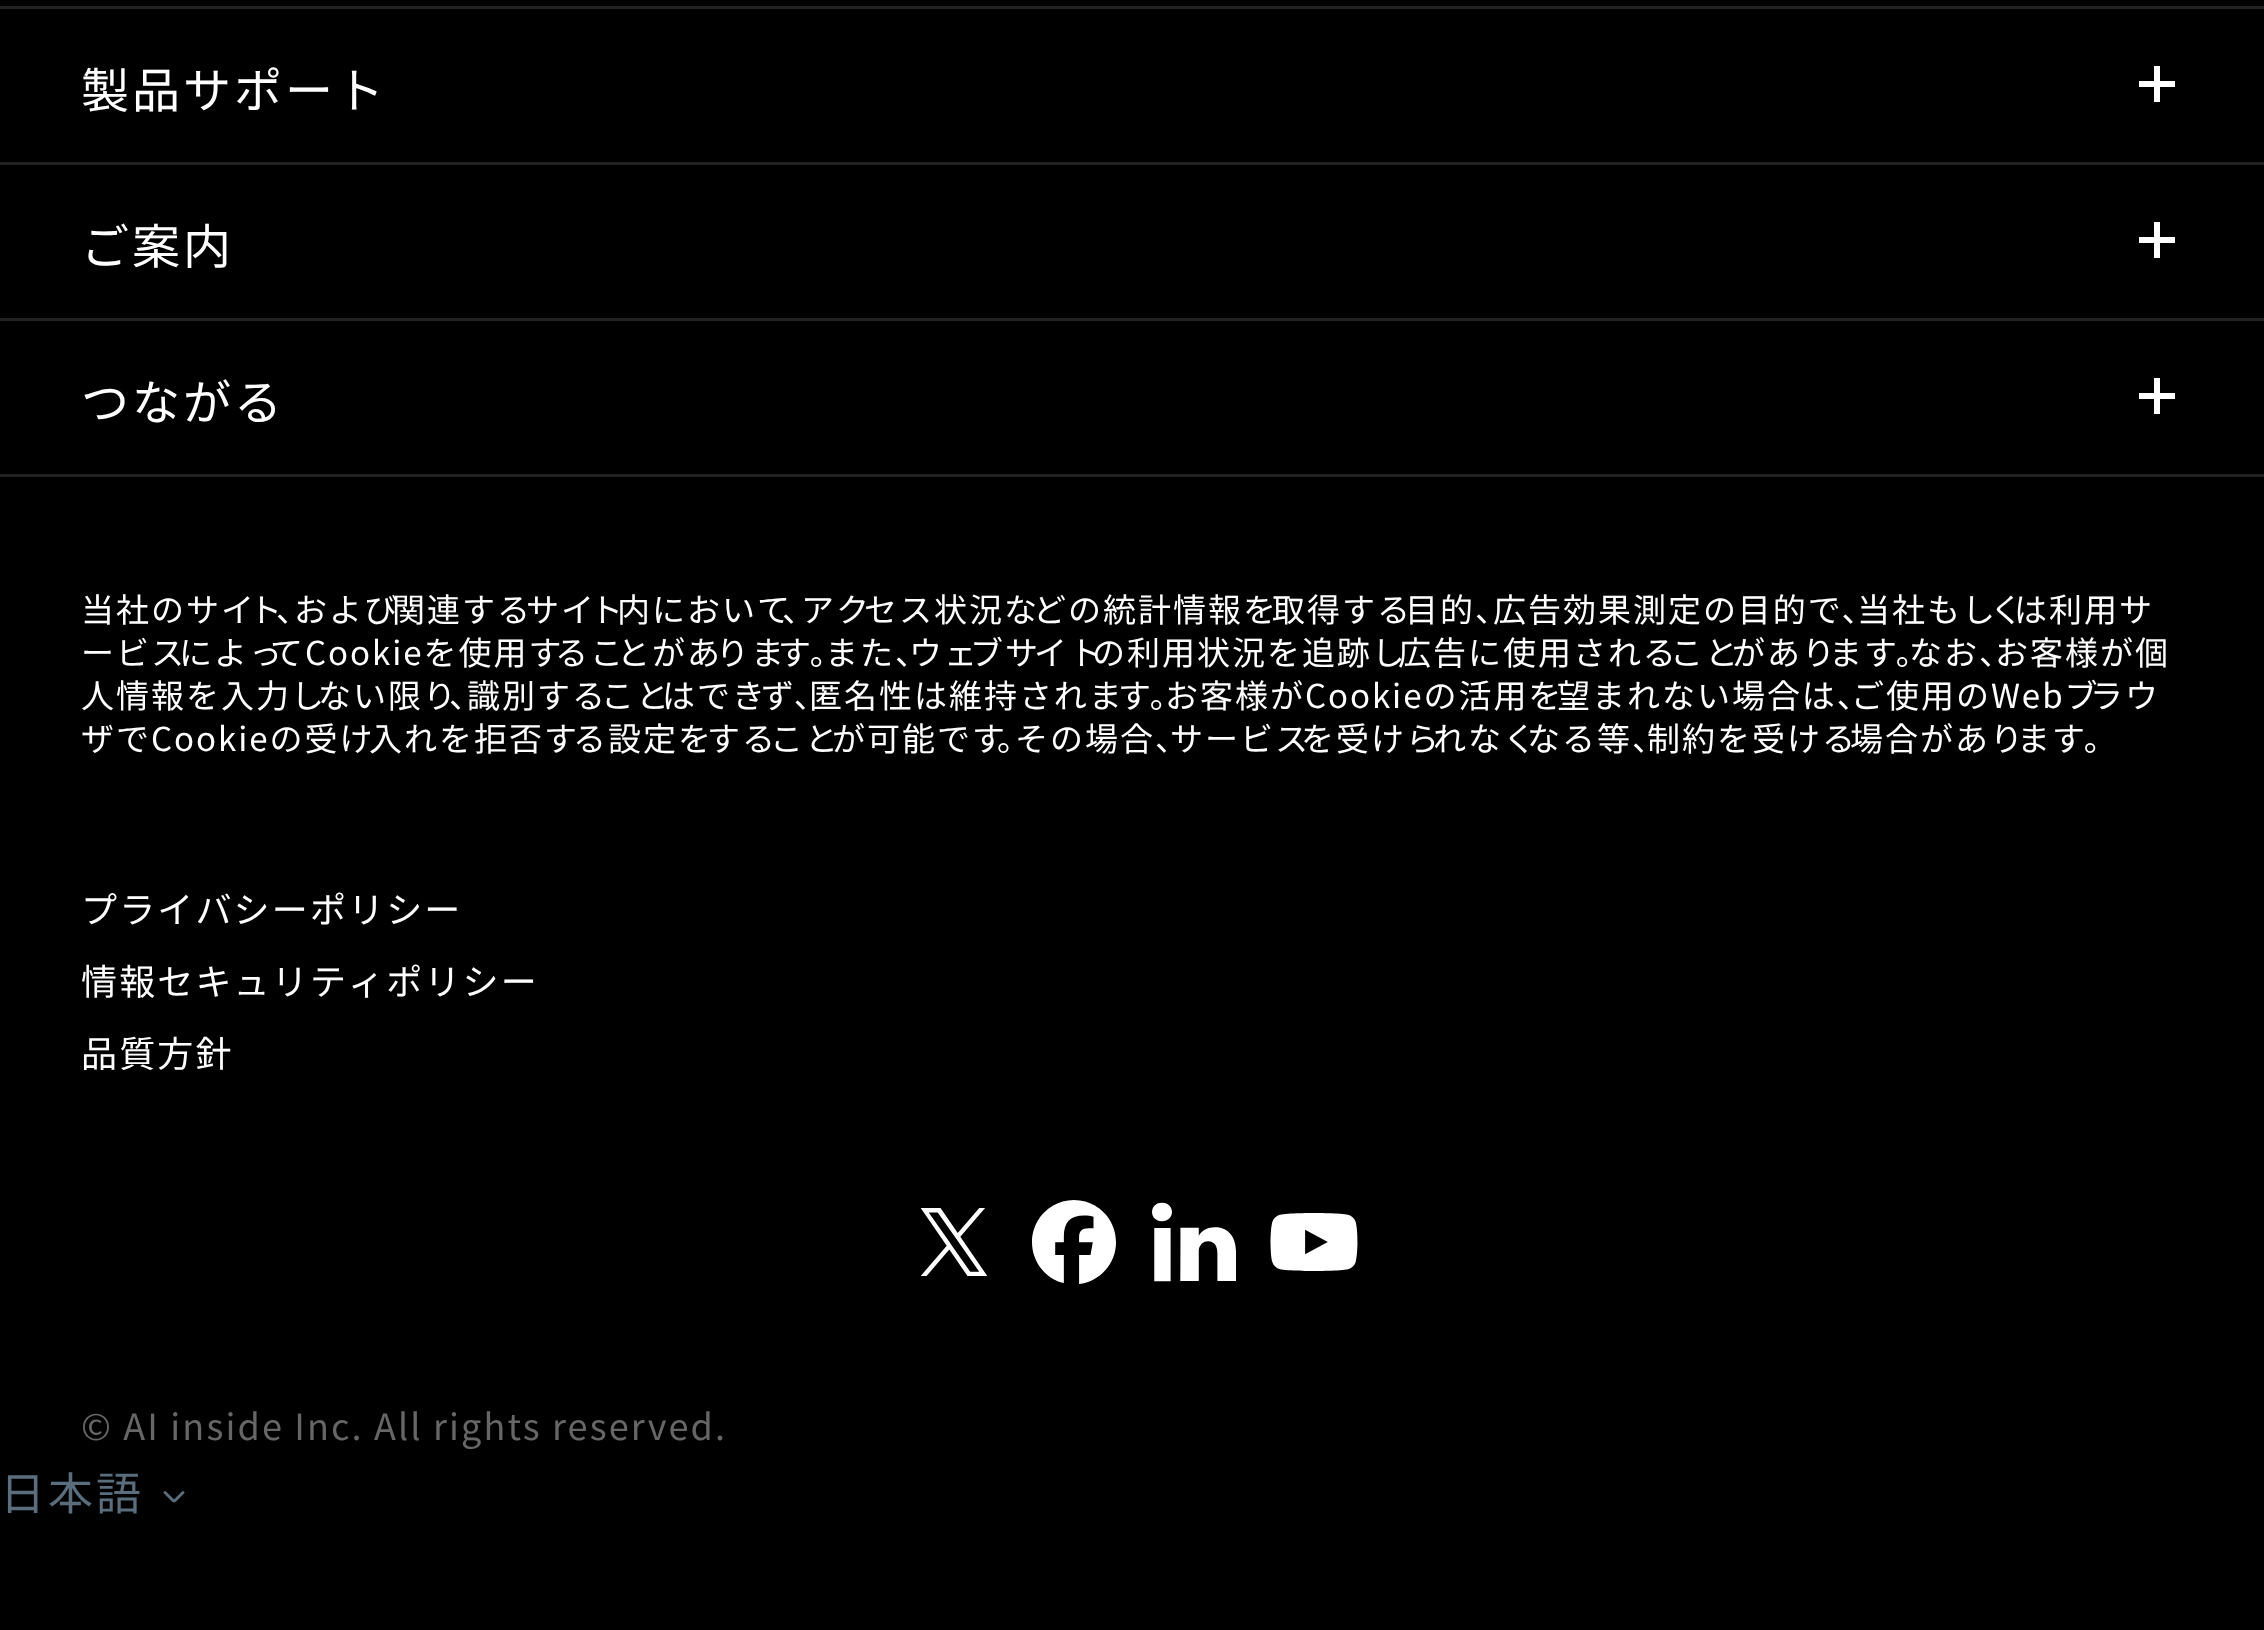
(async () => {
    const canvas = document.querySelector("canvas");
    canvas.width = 2264;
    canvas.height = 1630;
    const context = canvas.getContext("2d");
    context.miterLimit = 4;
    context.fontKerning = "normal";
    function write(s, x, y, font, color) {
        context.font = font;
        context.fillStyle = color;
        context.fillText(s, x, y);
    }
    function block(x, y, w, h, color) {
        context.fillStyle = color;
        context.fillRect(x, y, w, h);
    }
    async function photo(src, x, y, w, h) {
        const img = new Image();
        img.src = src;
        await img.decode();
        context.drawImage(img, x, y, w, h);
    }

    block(0, 0, 2264, 1630, "rgb(0, 0, 0)");
    block(0, 6, 2264, 3, "rgb(34, 34, 34)");
    block(0, 162, 2264, 3, "rgb(34, 34, 34)");
    context.letterSpacing = "3px";
    write("製品サポート", 81, 108, "48px Noto Sans JP", "rgb(255, 255, 255)");
    block(2139, 81, 36, 6, "rgb(255, 255, 255)");
    block(2154, 66, 6, 36, "rgb(255, 255, 255)");
    block(0, 318, 2264, 3, "rgb(34, 34, 34)");
    write("ご案内", 81, 264, "48px Noto Sans JP", "rgb(255, 255, 255)");
    block(2139, 237, 36, 6, "rgb(255, 255, 255)");
    block(2154, 222, 6, 36, "rgb(255, 255, 255)");
    block(0, 474, 2264, 3, "rgb(34, 34, 34)");
    write("つながる", 81, 420, "48px Noto Sans JP", "rgb(255, 255, 255)");
    block(2139, 393, 36, 6, "rgb(255, 255, 255)");
    block(2154, 378, 6, 36, "rgb(255, 255, 255)");
    context.letterSpacing = "1.98px";
    write("当社のサイ", 81, 622, "33px Noto Sans JP", "rgb(255, 255, 255)");
    write("ト", 249, 622, "33px Noto Sans JP", "rgb(255, 255, 255)");
    write("、", 276, 622, "33px Noto Sans JP", "rgb(255, 255, 255)");
    write("および", 294, 622, "33px Noto Sans JP", "rgb(255, 255, 255)");
    write("関連する", 392, 622, "33px Noto Sans JP", "rgb(255, 255, 255)");
    write("サイ", 526, 622, "33px Noto Sans JP", "rgb(255, 255, 255)");
    write("ト", 590, 622, "33px Noto Sans JP", "rgb(255, 255, 255)");
    write("内において", 617, 622, "33px Noto Sans JP", "rgb(255, 255, 255)");
    write("、", 782, 622, "33px Noto Sans JP", "rgb(255, 255, 255)");
    write("アク", 801, 622, "33px Noto Sans JP", "rgb(255, 255, 255)");
    write("セス状況な", 864, 622, "33px Noto Sans JP", "rgb(255, 255, 255)");
    write("どの統計情報を", 1033, 622, "33px Noto Sans JP", "rgb(255, 255, 255)");
    write("取得する", 1272, 622, "33px Noto Sans JP", "rgb(255, 255, 255)");
    write("目的、", 1405, 622, "33px Noto Sans JP", "rgb(255, 255, 255)");
    write("広告効果測定の目的で、", 1493, 622, "33px Noto Sans JP", "rgb(255, 255, 255)");
    write("当社もし", 1857, 622, "33px Noto Sans JP", "rgb(255, 255, 255)");
    write("く", 1990, 622, "33px Noto Sans JP", "rgb(255, 255, 255)");
    write("は利用サ", 2014, 622, "33px Noto Sans JP", "rgb(255, 255, 255)");
    write("ービス", 81, 665, "33px Noto Sans JP", "rgb(255, 255, 255)");
    write("によっ", 179, 665, "33px Noto Sans JP", "rgb(255, 255, 255)");
    write("てCookieを使用す", 270, 665, "33px Noto Sans JP", "rgb(255, 255, 255)");
    write("るこ", 555, 665, "33px Noto Sans JP", "rgb(255, 255, 255)");
    write("とがあ", 617, 665, "33px Noto Sans JP", "rgb(255, 255, 255)");
    write("りま", 716, 665, "33px Noto Sans JP", "rgb(255, 255, 255)");
    write("す。", 778, 665, "33px Noto Sans JP", "rgb(255, 255, 255)");
    write("また、", 825, 665, "33px Noto Sans JP", "rgb(255, 255, 255)");
    write("ウェ", 909, 665, "33px Noto Sans JP", "rgb(255, 255, 255)");
    write("ブサ", 970, 665, "33px Noto Sans JP", "rgb(255, 255, 255)");
    write("イト", 1034, 665, "33px Noto Sans JP", "rgb(255, 255, 255)");
    write("の利用状況を追跡し", 1092, 665, "33px Noto Sans JP", "rgb(255, 255, 255)");
    write("広告に使用される", 1398, 665, "33px Noto Sans JP", "rgb(255, 255, 255)");
    write("こと", 1670, 665, "33px Noto Sans JP", "rgb(255, 255, 255)");
    write("があり", 1732, 665, "33px Noto Sans JP", "rgb(255, 255, 255)");
    write("ます。", 1829, 665, "33px Noto Sans JP", "rgb(255, 255, 255)");
    write("なお、", 1909, 665, "33px Noto Sans JP", "rgb(255, 255, 255)");
    write("お客様が個", 1995, 665, "33px Noto Sans JP", "rgb(255, 255, 255)");
    write("人情報を入力し", 81, 708, "33px Noto Sans JP", "rgb(255, 255, 255)");
    write("ない限り", 318, 708, "33px Noto Sans JP", "rgb(255, 255, 255)");
    write("、", 449, 708, "33px Noto Sans JP", "rgb(255, 255, 255)");
    write("識別する", 467, 708, "33px Noto Sans JP", "rgb(255, 255, 255)");
    write("こと", 601, 708, "33px Noto Sans JP", "rgb(255, 255, 255)");
    write("はでき", 662, 708, "33px Noto Sans JP", "rgb(255, 255, 255)");
    write("ず、", 761, 708, "33px Noto Sans JP", "rgb(255, 255, 255)");
    write("匿名性は維持されま", 809, 708, "33px Noto Sans JP", "rgb(255, 255, 255)");
    write("す。", 1118, 708, "33px Noto Sans JP", "rgb(255, 255, 255)");
    write("お客様がCookieの活用を", 1165, 708, "33px Noto Sans JP", "rgb(255, 255, 255)");
    write("望まれない場合は、", 1557, 708, "33px Noto Sans JP", "rgb(255, 255, 255)");
    write("ご使用のWebブ", 1851, 708, "33px Noto Sans JP", "rgb(255, 255, 255)");
    write("ラウ", 2090, 708, "33px Noto Sans JP", "rgb(255, 255, 255)");
    write("ザでCookieの受け", 81, 751, "33px Noto Sans JP", "rgb(255, 255, 255)");
    write("入れを拒否す", 369, 751, "33px Noto Sans JP", "rgb(255, 255, 255)");
    write("る設定を", 573, 751, "33px Noto Sans JP", "rgb(255, 255, 255)");
    write("する", 707, 751, "33px Noto Sans JP", "rgb(255, 255, 255)");
    write("こと", 770, 751, "33px Noto Sans JP", "rgb(255, 255, 255)");
    write("が可能です", 832, 751, "33px Noto Sans JP", "rgb(255, 255, 255)");
    write("。", 997, 751, "33px Noto Sans JP", "rgb(255, 255, 255)");
    write("その場合、", 1015, 751, "33px Noto Sans JP", "rgb(255, 255, 255)");
    write("サービス", 1170, 751, "33px Noto Sans JP", "rgb(255, 255, 255)");
    write("を受けら", 1301, 751, "33px Noto Sans JP", "rgb(255, 255, 255)");
    write("れなく", 1433, 751, "33px Noto Sans JP", "rgb(255, 255, 255)");
    write("なる等、", 1527, 751, "33px Noto Sans JP", "rgb(255, 255, 255)");
    write("制約を受ける", 1647, 751, "33px Noto Sans JP", "rgb(255, 255, 255)");
    write("場合があり", 1850, 751, "33px Noto Sans JP", "rgb(255, 255, 255)");
    write("ます。", 2017, 751, "33px Noto Sans JP", "rgb(255, 255, 255)");
    context.letterSpacing = "2.15px";
    write("プライバシーポリシー", 81, 923, "36px Noto Sans JP", "rgb(255, 255, 255)");
    write("情報セキュリティポリシー", 81, 995, "36px Noto Sans JP", "rgb(255, 255, 255)");
    write("品質方針", 81, 1067, "36px Noto Sans JP", "rgb(255, 255, 255)");
    await photo("media/1.png", 920, 1208, 68, 68);
    await photo("media/2.png", 1032, 1200, 84, 84);
    await photo("media/3.png", 1152, 1202, 84, 80);
    await photo("media/4.png", 1270, 1213, 88, 58);
    write("© AI inside Inc. All rights reserved.", 81, 1440, "36px Noto Sans JP", "rgb(102, 102, 102)");
    context.letterSpacing = "3px";
    write("日本語", 0, 1510, "45px Noto Sans JP", "rgb(90, 109, 124)");
    context.beginPath();
    context.moveTo(165, 1492.5);
    context.lineTo(173, 1500.5);
    context.bezierCurveTo(173.5, 1501, 174.5, 1501, 175, 1500.5);
    context.lineTo(183, 1492.5);
    context.strokeStyle = "rgb(90, 109, 124)";
    context.lineWidth = 3;
    context.lineCap = "round";
    context.stroke();
})();
